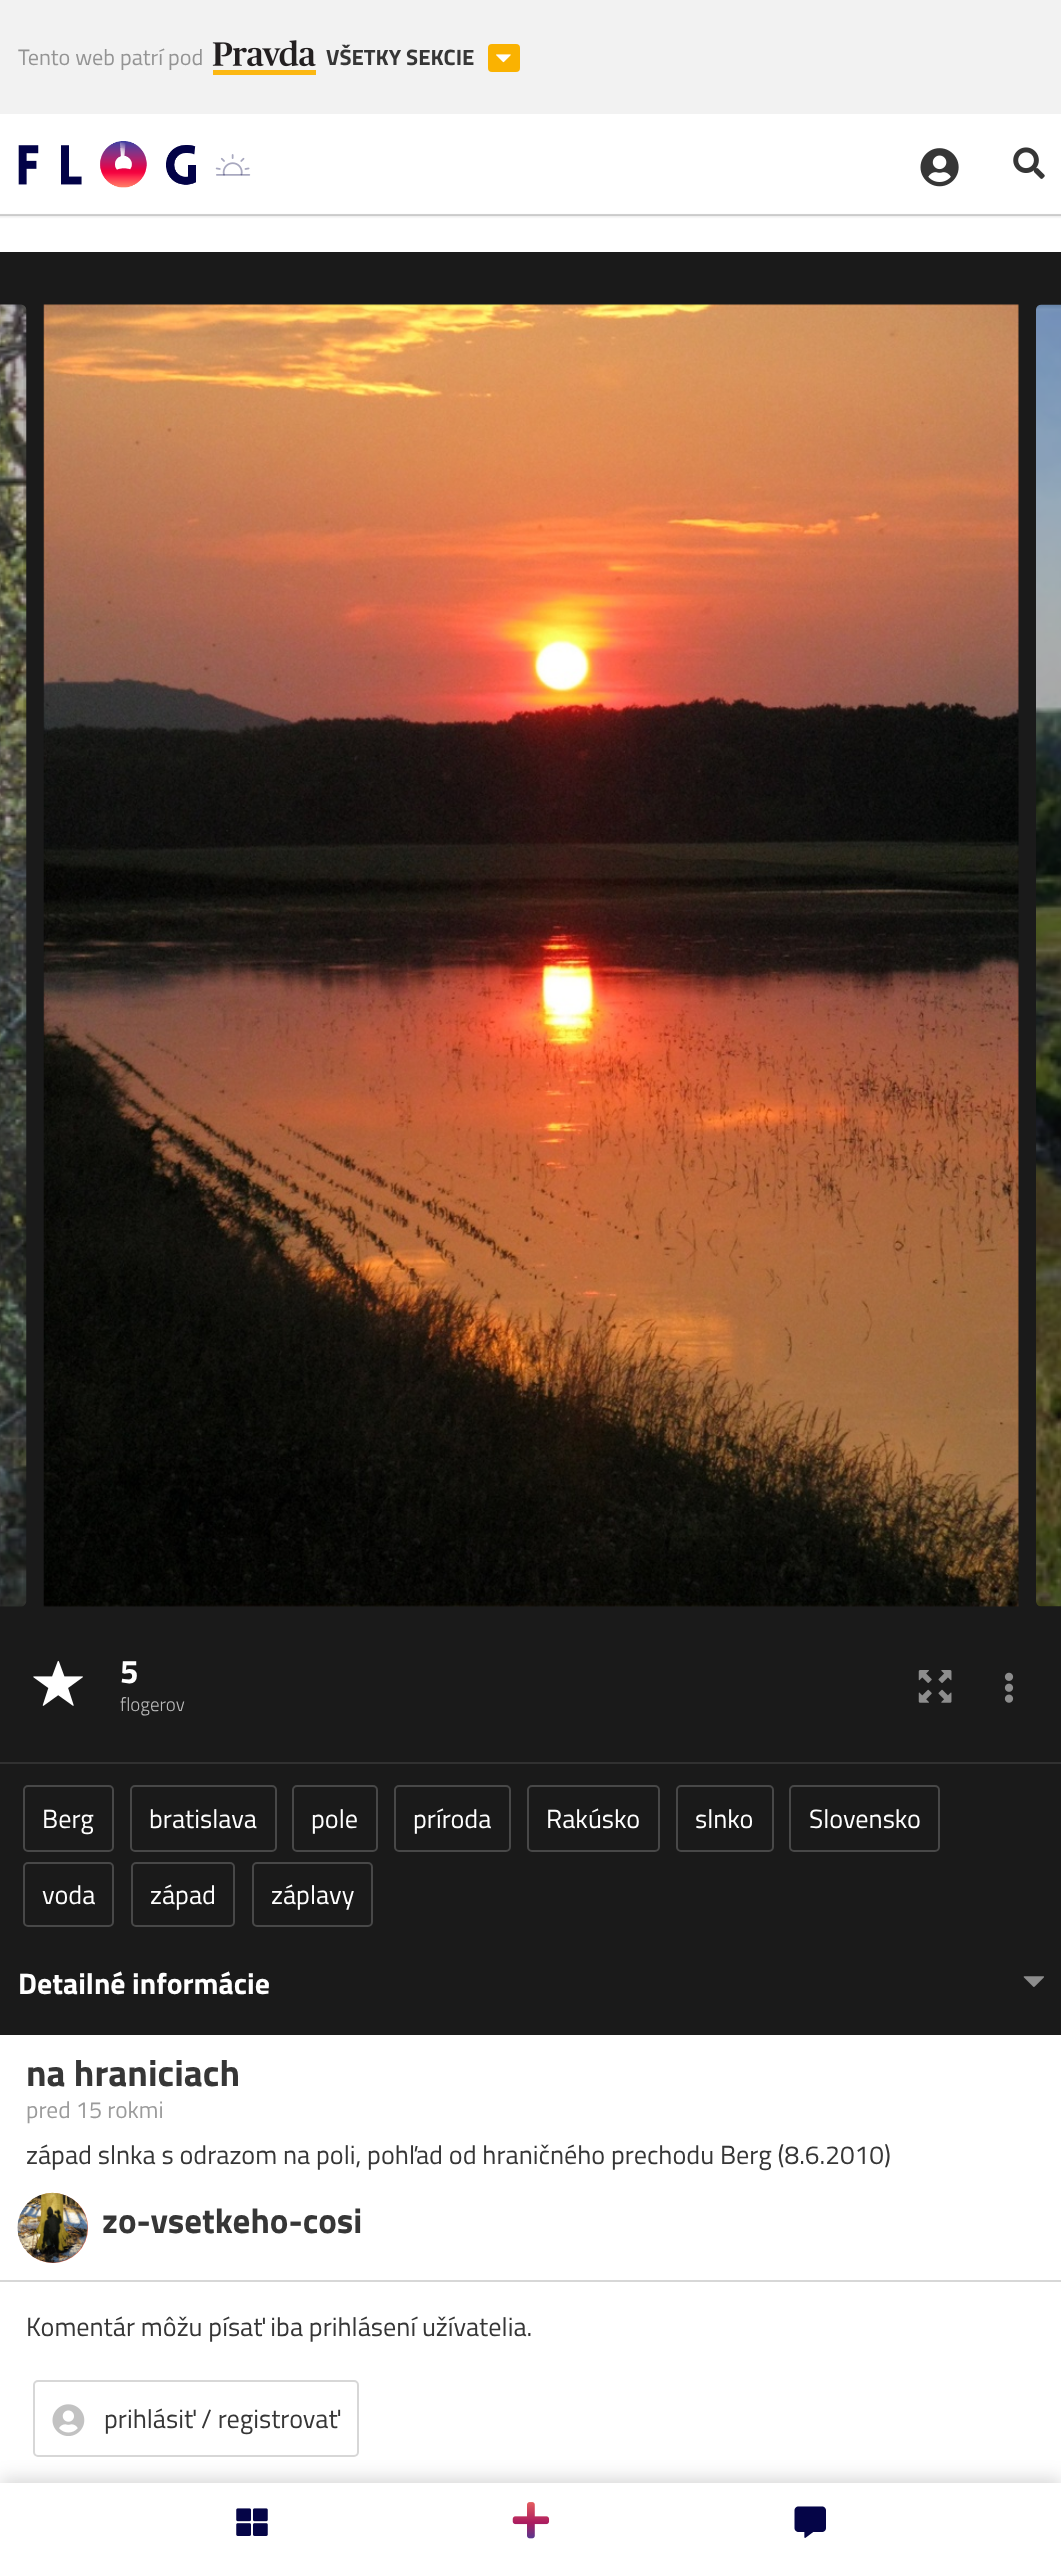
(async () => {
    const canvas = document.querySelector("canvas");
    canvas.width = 1061;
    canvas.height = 2559;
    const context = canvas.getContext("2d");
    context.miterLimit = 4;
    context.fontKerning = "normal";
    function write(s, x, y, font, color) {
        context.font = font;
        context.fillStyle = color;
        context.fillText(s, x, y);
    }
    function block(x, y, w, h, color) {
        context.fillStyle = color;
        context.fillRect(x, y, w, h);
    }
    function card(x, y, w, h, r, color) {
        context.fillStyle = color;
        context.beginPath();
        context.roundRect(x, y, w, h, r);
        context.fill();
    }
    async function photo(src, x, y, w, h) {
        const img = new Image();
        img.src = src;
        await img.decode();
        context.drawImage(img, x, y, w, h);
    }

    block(0, 0, 1061, 2559, "rgb(255, 255, 255)");
    block(0, 0, 1061, 114, "rgb(242, 242, 242)");
    write("Tento web patrí pod", 18, 65, "22.25px Titillium Web", "rgb(148, 148, 148)");
    await photo("media/1.png", 212, 40, 104, 35);
    write("VŠETKY SEKCIE", 326, 65, "bold 22.25px Titillium Web", "rgb(54, 54, 54)");
    card(488, 44, 32, 28, 4, "rgb(250, 178, 1)");
    await photo("media/2.png", 496, 54, 15, 9);
    await photo("media/3.png", 18, 141, 178, 47);
    await photo("media/5.png", 120, 148, 5, 9);
    await photo("media/4.png", 120, 142, 6, 14);
    await photo("media/6.png", 215, 154, 36, 22);
    await photo("media/7.png", 920, 148, 39, 39);
    await photo("media/8.png", 1013, 147, 32, 32);
    context.fillStyle = "rgba(0, 0, 0, 0.1)";
    context.filter = "blur(1px)";
    context.beginPath();
    context.rect(-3, 215, 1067, 2);
    context.fill();
    context.filter = "none";
    block(0, 214, 1061, 2, "rgba(54, 54, 54, 0.2)");
    context.beginPath();
    context.roundRect(34, 2381, 324, 75, 4);
    context.strokeStyle = "rgb(215, 215, 215)";
    context.lineWidth = 2;
    context.stroke();
    context.fillStyle = "rgba(0, 0, 0, 0.15)";
    context.filter = "blur(9px)";
    context.beginPath();
    context.rect(0, 2478, 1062, 77);
    context.fill();
    context.filter = "none";
    block(0, 2483, 1061, 76, "rgb(255, 255, 255)");
    await photo("media/9.png", 236, 2508, 32, 28);
    await photo("media/10.png", 512, 2502, 38, 37);
    await photo("media/11.png", 794, 2506, 32, 32);
    block(0, 252, 1061, 1783, "rgb(26, 26, 26)");
    await photo("media/12.png", 0, 304, 27, 1303);
    await photo("media/13.png", 43, 304, 976, 1303);
    await photo("media/14.png", 1036, 304, 25, 1303);
    await photo("media/15.png", 33, 1660, 50, 46);
    write("5", 120, 1683, "bold 33px Titillium Web", "rgb(255, 255, 255)");
    write("flogerov", 120, 1711, "300 19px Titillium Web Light", "rgb(186, 186, 186)");
    await photo("media/16.png", 918, 1670, 34, 33);
    await photo("media/17.png", 1004, 1672, 10, 31);
    block(0, 1762, 1061, 2, "rgb(49, 49, 49)");
    context.beginPath();
    context.roundRect(24, 1786, 89, 65, 4);
    context.strokeStyle = "rgb(72, 72, 72)";
    context.stroke();
    write("Berg", 42, 1828, "26.25px Titillium Web", "rgb(255, 255, 255)");
    context.beginPath();
    context.roundRect(131, 1786, 145, 65, 4);
    context.stroke();
    write("bratislava", 149, 1828, "26.25px Titillium Web", "rgb(255, 255, 255)");
    context.beginPath();
    context.roundRect(293, 1786, 84, 65, 4);
    context.stroke();
    write("pole", 311, 1828, "26.25px Titillium Web", "rgb(255, 255, 255)");
    context.beginPath();
    context.roundRect(395, 1786, 115, 65, 4);
    context.stroke();
    write("príroda", 413, 1828, "26.25px Titillium Web", "rgb(255, 255, 255)");
    context.beginPath();
    context.roundRect(528, 1786, 131, 65, 4);
    context.stroke();
    write("Rakúsko", 546, 1828, "26.25px Titillium Web", "rgb(255, 255, 255)");
    context.beginPath();
    context.roundRect(677, 1786, 96, 65, 4);
    context.stroke();
    write("slnko", 695, 1828, "26.25px Titillium Web", "rgb(255, 255, 255)");
    context.beginPath();
    context.roundRect(790, 1786, 149, 65, 4);
    context.stroke();
    write("Slovensko", 809, 1828, "26.25px Titillium Web", "rgb(255, 255, 255)");
    context.beginPath();
    context.roundRect(24, 1863, 89, 63, 4);
    context.stroke();
    write("voda", 42, 1904, "26.25px Titillium Web", "rgb(255, 255, 255)");
    context.beginPath();
    context.roundRect(132, 1863, 102, 63, 4);
    context.stroke();
    write("západ", 150, 1904, "26.25px Titillium Web", "rgb(255, 255, 255)");
    context.beginPath();
    context.roundRect(253, 1863, 119, 63, 4);
    context.stroke();
    write("záplavy", 271, 1904, "26.25px Titillium Web", "rgb(255, 255, 255)");
    write("Detailné informácie", 18, 1994, "bold 29.75px Titillium Web", "rgb(255, 255, 255)");
    await photo("media/18.png", 1023, 1976, 21, 11);
    write("na hraniciach", 26, 2086, "bold 37.25px Titillium Web", "rgb(54, 54, 54)");
    write("pred 15 rokmi", 26, 2118, "23.5px Titillium Web", "rgb(155, 155, 155)");
    write("západ slnka s odrazom na poli, pohľad od hraničného prechodu Berg (8.6.2010)", 26, 2164, "26.25px Titillium Web", "rgb(54, 54, 54)");
    context.fillStyle = "rgb(233, 107, 77)";
    context.beginPath();
    context.arc(53, 2228, 35, 0, Math.PI * 2);
    context.fill();
    await photo("media/19.png", 17, 2192, 71, 71);
    context.beginPath();
    context.arc(53, 2228, 34, 0, Math.PI * 2);
    context.strokeStyle = "rgba(54, 54, 54, 0.1)";
    context.stroke();
    write("zo-vsetkeho-cosi", 102, 2233, "bold 35px Titillium Web", "rgb(54, 54, 54)");
    block(0, 2280, 1061, 2, "rgb(215, 215, 215)");
    write("Komentár môžu písať iba prihlásení užívatelia.", 26, 2336, "26.25px Titillium Web", "rgb(54, 54, 54)");
    await photo("media/20.png", 52, 2404, 33, 32);
    write("prihlásiť / registrovať", 104, 2428, "26.25px Titillium Web", "rgb(54, 54, 54)");
})();
